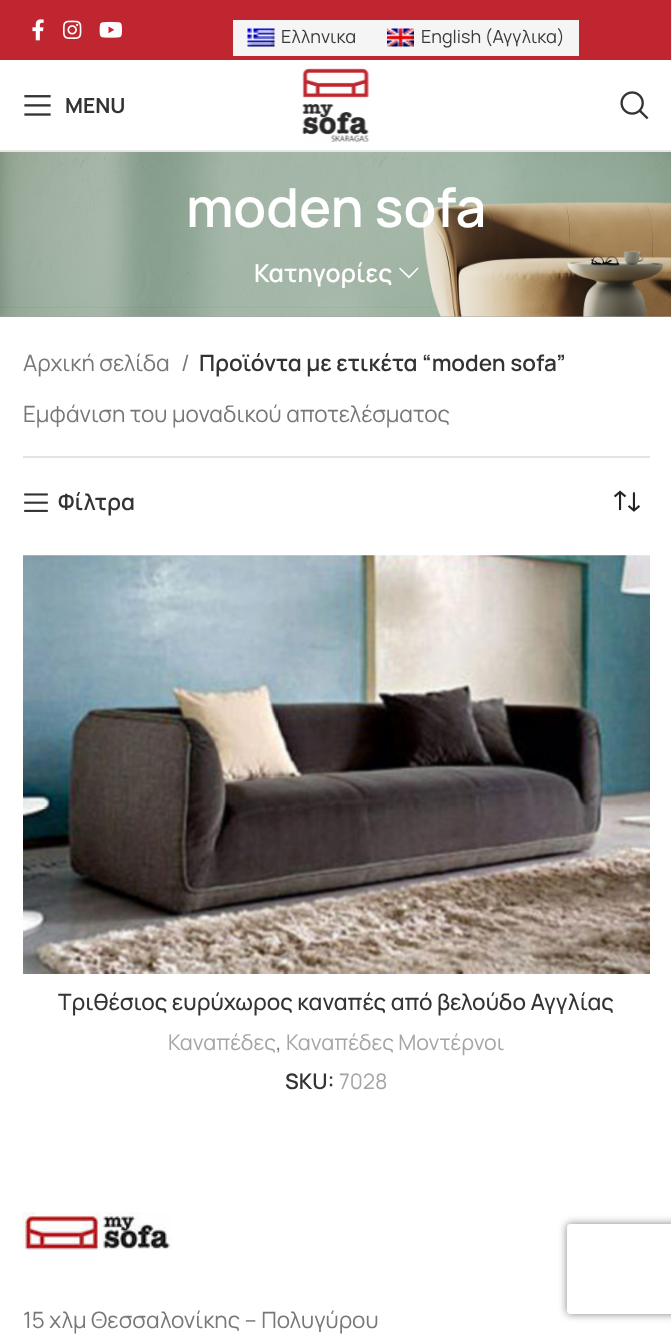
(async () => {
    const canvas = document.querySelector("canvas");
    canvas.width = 671;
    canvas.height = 1335;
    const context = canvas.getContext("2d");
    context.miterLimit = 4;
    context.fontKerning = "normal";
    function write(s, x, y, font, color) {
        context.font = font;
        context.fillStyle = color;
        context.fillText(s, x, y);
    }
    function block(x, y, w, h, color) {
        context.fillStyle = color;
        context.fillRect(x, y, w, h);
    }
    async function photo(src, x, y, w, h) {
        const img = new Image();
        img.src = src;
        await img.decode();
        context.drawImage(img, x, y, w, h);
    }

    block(0, 0, 671, 1335, "rgb(255, 255, 255)");
    block(0, 0, 671, 60, "rgb(191, 38, 47)");
    await photo("media/1.png", 32, 19, 12, 22);
    await photo("media/2.png", 63, 20, 19, 19);
    await photo("media/3.png", 99, 21, 23, 17);
    block(233, 20, 346, 36, "rgb(245, 245, 245)");
    await photo("media/4.png", 247, 28, 28, 19);
    write("Ελληνικα", 281, 43, "18px Manrope", "rgb(57, 57, 57)");
    await photo("media/5.png", 387, 28, 27, 19);
    write("English (Αγγλικα)", 421, 43, "18px Manrope", "rgb(57, 57, 57)");
    block(0, 150, 671, 2, "rgb(230, 230, 230)");
    await photo("media/6.png", 24, 95, 27, 21);
    write("MENU", 65, 113, "bold 21px Manrope", "rgb(51, 51, 51)");
    await photo("media/7.png", 302, 68, 68, 74);
    await photo("media/8.png", 620, 91, 29, 29);
    block(0, 316, 671, 1, "rgb(165, 165, 165)");
    await photo("media/9.png", 0, 152, 671, 165);
    write("moden sofa", 186, 227, "600 54px Manrope", "rgb(255, 255, 255)");
    write("Κατηγορίες", 254, 282, "600 24.75px Manrope", "rgb(255, 255, 255)");
    context.beginPath();
    context.moveTo(417.5, 267.5);
    context.lineTo(409, 276);
    context.lineTo(400, 267.5);
    context.lineTo(399, 268.5);
    context.lineTo(409, 278.5);
    context.lineTo(418.5, 268.5);
    context.closePath();
    context.fill();
    block(23, 456, 627, 2, "rgb(228, 228, 228)");
    write("Αρχική σελίδα", 23, 371, "22.5px Manrope", "rgb(119, 119, 119)");
    write("/", 181, 371, "22.5px Manrope", "rgb(119, 119, 119)");
    write("Προϊόντα με ετικέτα “moden sofa”", 199, 371, "600 22.5px Manrope", "rgb(51, 51, 51)");
    write("Εμφάνιση του μοναδικού αποτελέσματος", 23, 422, "22.5px Manrope", "rgb(119, 119, 119)");
    await photo("media/10.png", 24, 493, 24, 19);
    write("Φίλτρα", 58, 510, "600 22.5px Manrope", "rgb(51, 51, 51)");
    await photo("media/11.png", 614, 490, 26, 22);
    await photo("media/12.png", 23, 555, 627, 419);
    write("Τριθέσιος ευρύχωρος καναπές από βελούδο Αγγλίας", 58, 1010, "500 22.5px Manrope", "rgb(51, 51, 51)");
    write("Καναπέδες", 168, 1050, "21.4px Manrope", "rgb(165, 165, 165)");
    write(",", 276, 1050, "21.4px Manrope", "rgb(119, 119, 119)");
    write("Καναπέδες Μοντέρνοι", 286, 1050, "21.4px Manrope", "rgb(165, 165, 165)");
    write("SKU:", 285, 1089, "600 21.4px Manrope", "rgb(51, 51, 51)");
    write("7028", 339, 1089, "21.4px Manrope", "rgb(165, 165, 165)");
    await photo("media/13.png", 22, 1212, 150, 38);
    write("15 χλμ Θεσσαλονίκης – Πολυγύρου", 23, 1328, "22.5px Manrope", "rgb(119, 119, 119)");
    context.save();
    context.beginPath();
    context.moveTo(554, 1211);
    context.lineTo(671, 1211);
    context.lineTo(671, 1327);
    context.lineTo(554, 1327);
    context.closePath();
    context.moveTo(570, 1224);
    context.lineTo(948, 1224);
    context.bezierCurveTo(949.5, 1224, 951, 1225.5, 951, 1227);
    context.lineTo(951, 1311);
    context.bezierCurveTo(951, 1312.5, 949.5, 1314, 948, 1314);
    context.lineTo(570, 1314);
    context.bezierCurveTo(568.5, 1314, 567, 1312.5, 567, 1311);
    context.lineTo(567, 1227);
    context.bezierCurveTo(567, 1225.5, 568.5, 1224, 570, 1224);
    context.closePath();
    context.clip("evenodd");
    context.fillStyle = "rgb(128, 128, 128)";
    context.filter = "blur(4px)";
    context.beginPath();
    context.roundRect(567, 1224, 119, 90, 3);
    context.fill();
    context.filter = "none";
    context.restore();
})();
